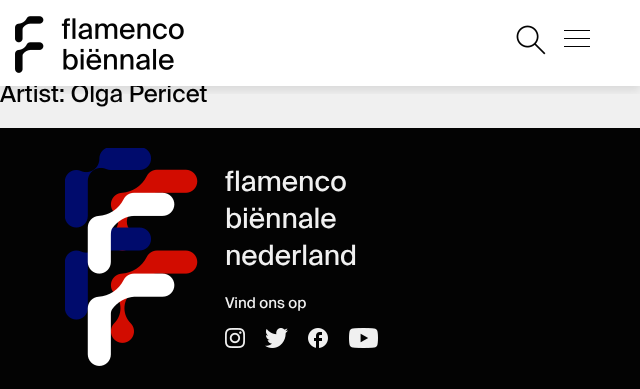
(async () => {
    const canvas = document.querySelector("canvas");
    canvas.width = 640;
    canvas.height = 389;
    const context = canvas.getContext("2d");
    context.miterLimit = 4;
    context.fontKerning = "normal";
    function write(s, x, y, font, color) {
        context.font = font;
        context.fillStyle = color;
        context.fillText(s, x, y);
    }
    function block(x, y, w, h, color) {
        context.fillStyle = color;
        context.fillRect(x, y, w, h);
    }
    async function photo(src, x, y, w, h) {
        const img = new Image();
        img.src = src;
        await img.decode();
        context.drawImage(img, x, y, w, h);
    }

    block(0, 0, 640, 389, "rgb(240, 240, 240)");
    write("Artist: Olga Pericet", 0, 102, "24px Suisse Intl", "rgb(3, 3, 3)");
    block(0, 0, 640, 86, "rgb(255, 255, 255)");
    context.save();
    context.beginPath();
    context.rect(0, 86, 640, 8);
    context.clip();
    context.fillStyle = "rgba(0, 0, 0, 0.1)";
    context.filter = "blur(5px)";
    context.beginPath();
    context.rect(0, 4, 640, 86);
    context.fill();
    context.filter = "none";
    context.restore();
    await photo("media/1.png", 15, 16, 169, 57);
    await photo("media/2.png", 516, 25, 30, 30);
    block(564, 30, 26, 1, "rgb(3, 3, 3)");
    block(564, 38, 26, 1, "rgb(3, 3, 3)");
    block(564, 46, 26, 1, "rgb(3, 3, 3)");
    block(0, 128, 640, 261, "rgb(3, 3, 3)");
    await photo("media/3.png", 65, 148, 133, 218);
    write("flamenco", 225, 191, "28px Suisse Intl", "rgb(240, 240, 240)");
    write("biënnale", 225, 228, "28px Suisse Intl", "rgb(240, 240, 240)");
    write("nederland", 225, 265, "28px Suisse Intl", "rgb(240, 240, 240)");
    write("Vind ons op", 225, 308, "15px Suisse Intl", "rgb(240, 240, 240)");
    await photo("media/4.png", 225, 328, 20, 20);
    await photo("media/5.png", 265, 328, 23, 20);
    await photo("media/6.png", 308, 328, 20, 20);
    await photo("media/7.png", 349, 328, 29, 20);
})();
